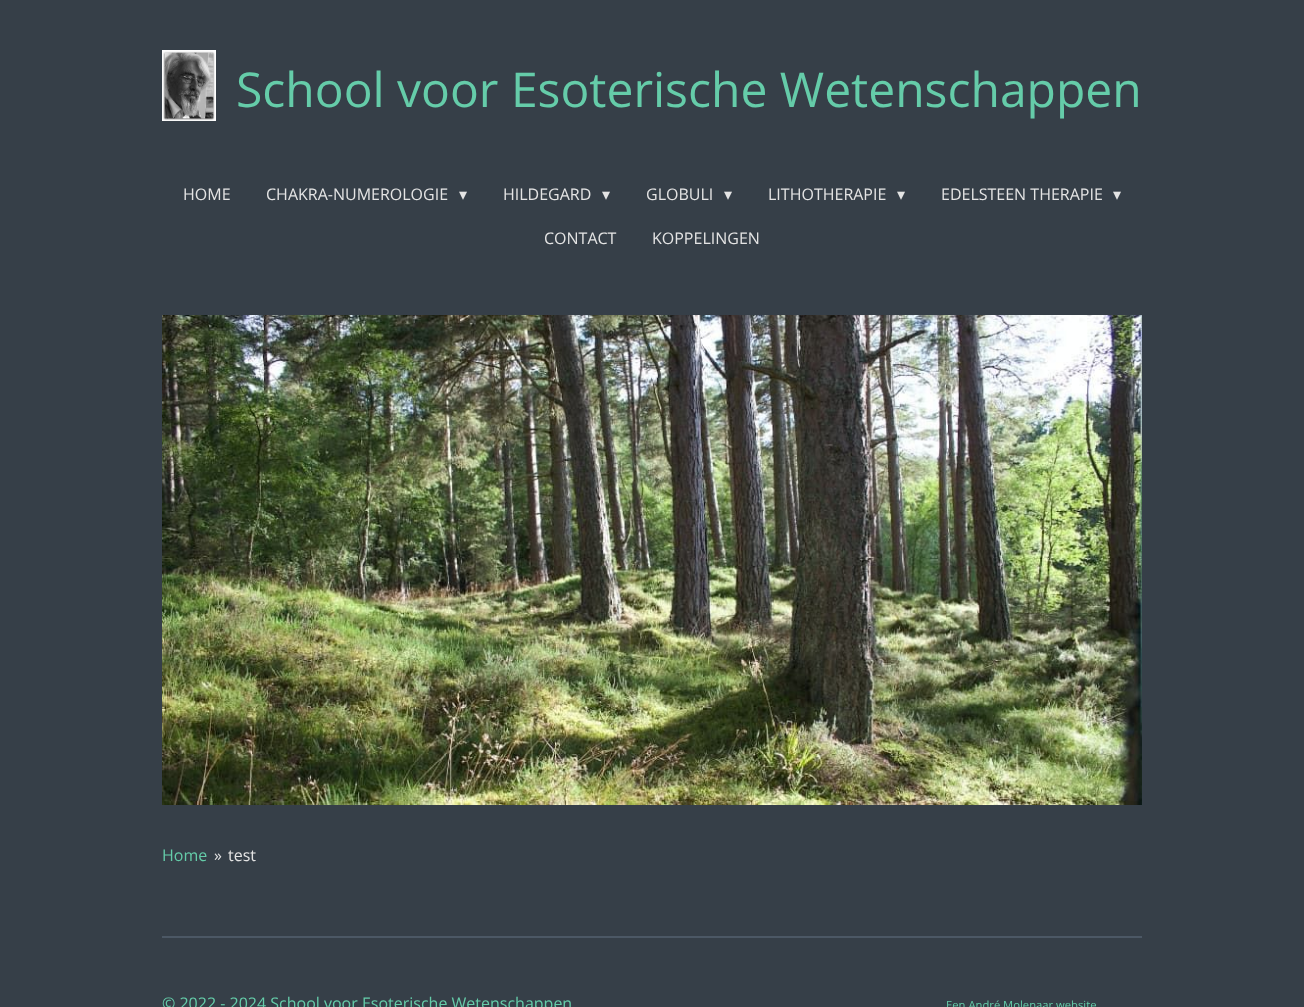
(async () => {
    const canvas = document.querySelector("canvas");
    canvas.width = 1304;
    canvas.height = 1007;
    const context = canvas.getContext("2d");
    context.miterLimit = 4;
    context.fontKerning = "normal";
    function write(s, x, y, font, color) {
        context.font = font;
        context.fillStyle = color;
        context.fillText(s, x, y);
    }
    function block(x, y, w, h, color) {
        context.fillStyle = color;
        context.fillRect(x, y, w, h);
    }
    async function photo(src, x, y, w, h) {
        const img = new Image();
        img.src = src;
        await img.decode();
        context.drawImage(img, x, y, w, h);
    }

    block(0, 0, 1304, 1007, "rgb(54, 63, 72)");
    await photo("media/1.png", 162, 50, 54, 71);
    write("School voor Esoterische Wetenschappen", 236, 107, "48px Open Sans", "rgb(101, 204, 169)");
    write("HOME", 183, 200, "16px Open Sans", "rgb(228, 228, 228)");
    write("CHAKRA-NUMEROLOGIE", 266, 200, "16px Open Sans", "rgb(228, 228, 228)");
    write("▾", 459, 200, "16px DejaVu Sans", "rgb(228, 228, 228)");
    write("HILDEGARD", 503, 200, "16px Open Sans", "rgb(228, 228, 228)");
    write("▾", 602, 200, "16px DejaVu Sans", "rgb(228, 228, 228)");
    write("GLOBULI", 646, 200, "16px Open Sans", "rgb(228, 228, 228)");
    write("▾", 724, 200, "16px DejaVu Sans", "rgb(228, 228, 228)");
    write("LITHOTHERAPIE", 768, 200, "16px Open Sans", "rgb(228, 228, 228)");
    write("▾", 897, 200, "16px DejaVu Sans", "rgb(228, 228, 228)");
    write("EDELSTEEN THERAPIE", 941, 200, "16px Open Sans", "rgb(228, 228, 228)");
    write("▾", 1113, 200, "16px DejaVu Sans", "rgb(228, 228, 228)");
    write("CONTACT", 544, 244, "16px Open Sans", "rgb(228, 228, 228)");
    write("KOPPELINGEN", 652, 244, "16px Open Sans", "rgb(228, 228, 228)");
    await photo("media/2.png", 162, 315, 980, 490);
    write("Home", 162, 861, "16px Open Sans", "rgb(101, 204, 169)");
    write("»", 214, 861, "16px Open Sans", "rgb(228, 228, 228)");
    write("test", 228, 861, "16px Open Sans", "rgb(228, 228, 228)");
    block(162, 936, 980, 2, "rgb(76, 88, 101)");
    write("© 2022 - 2024 School voor Esoterische Wetenschappen", 162, 1009, "16px Open Sans", "rgb(101, 204, 169)");
    write("Een André Molenaar website", 946, 1009, "11.25px Open Sans", "rgb(101, 204, 169)");
})();
